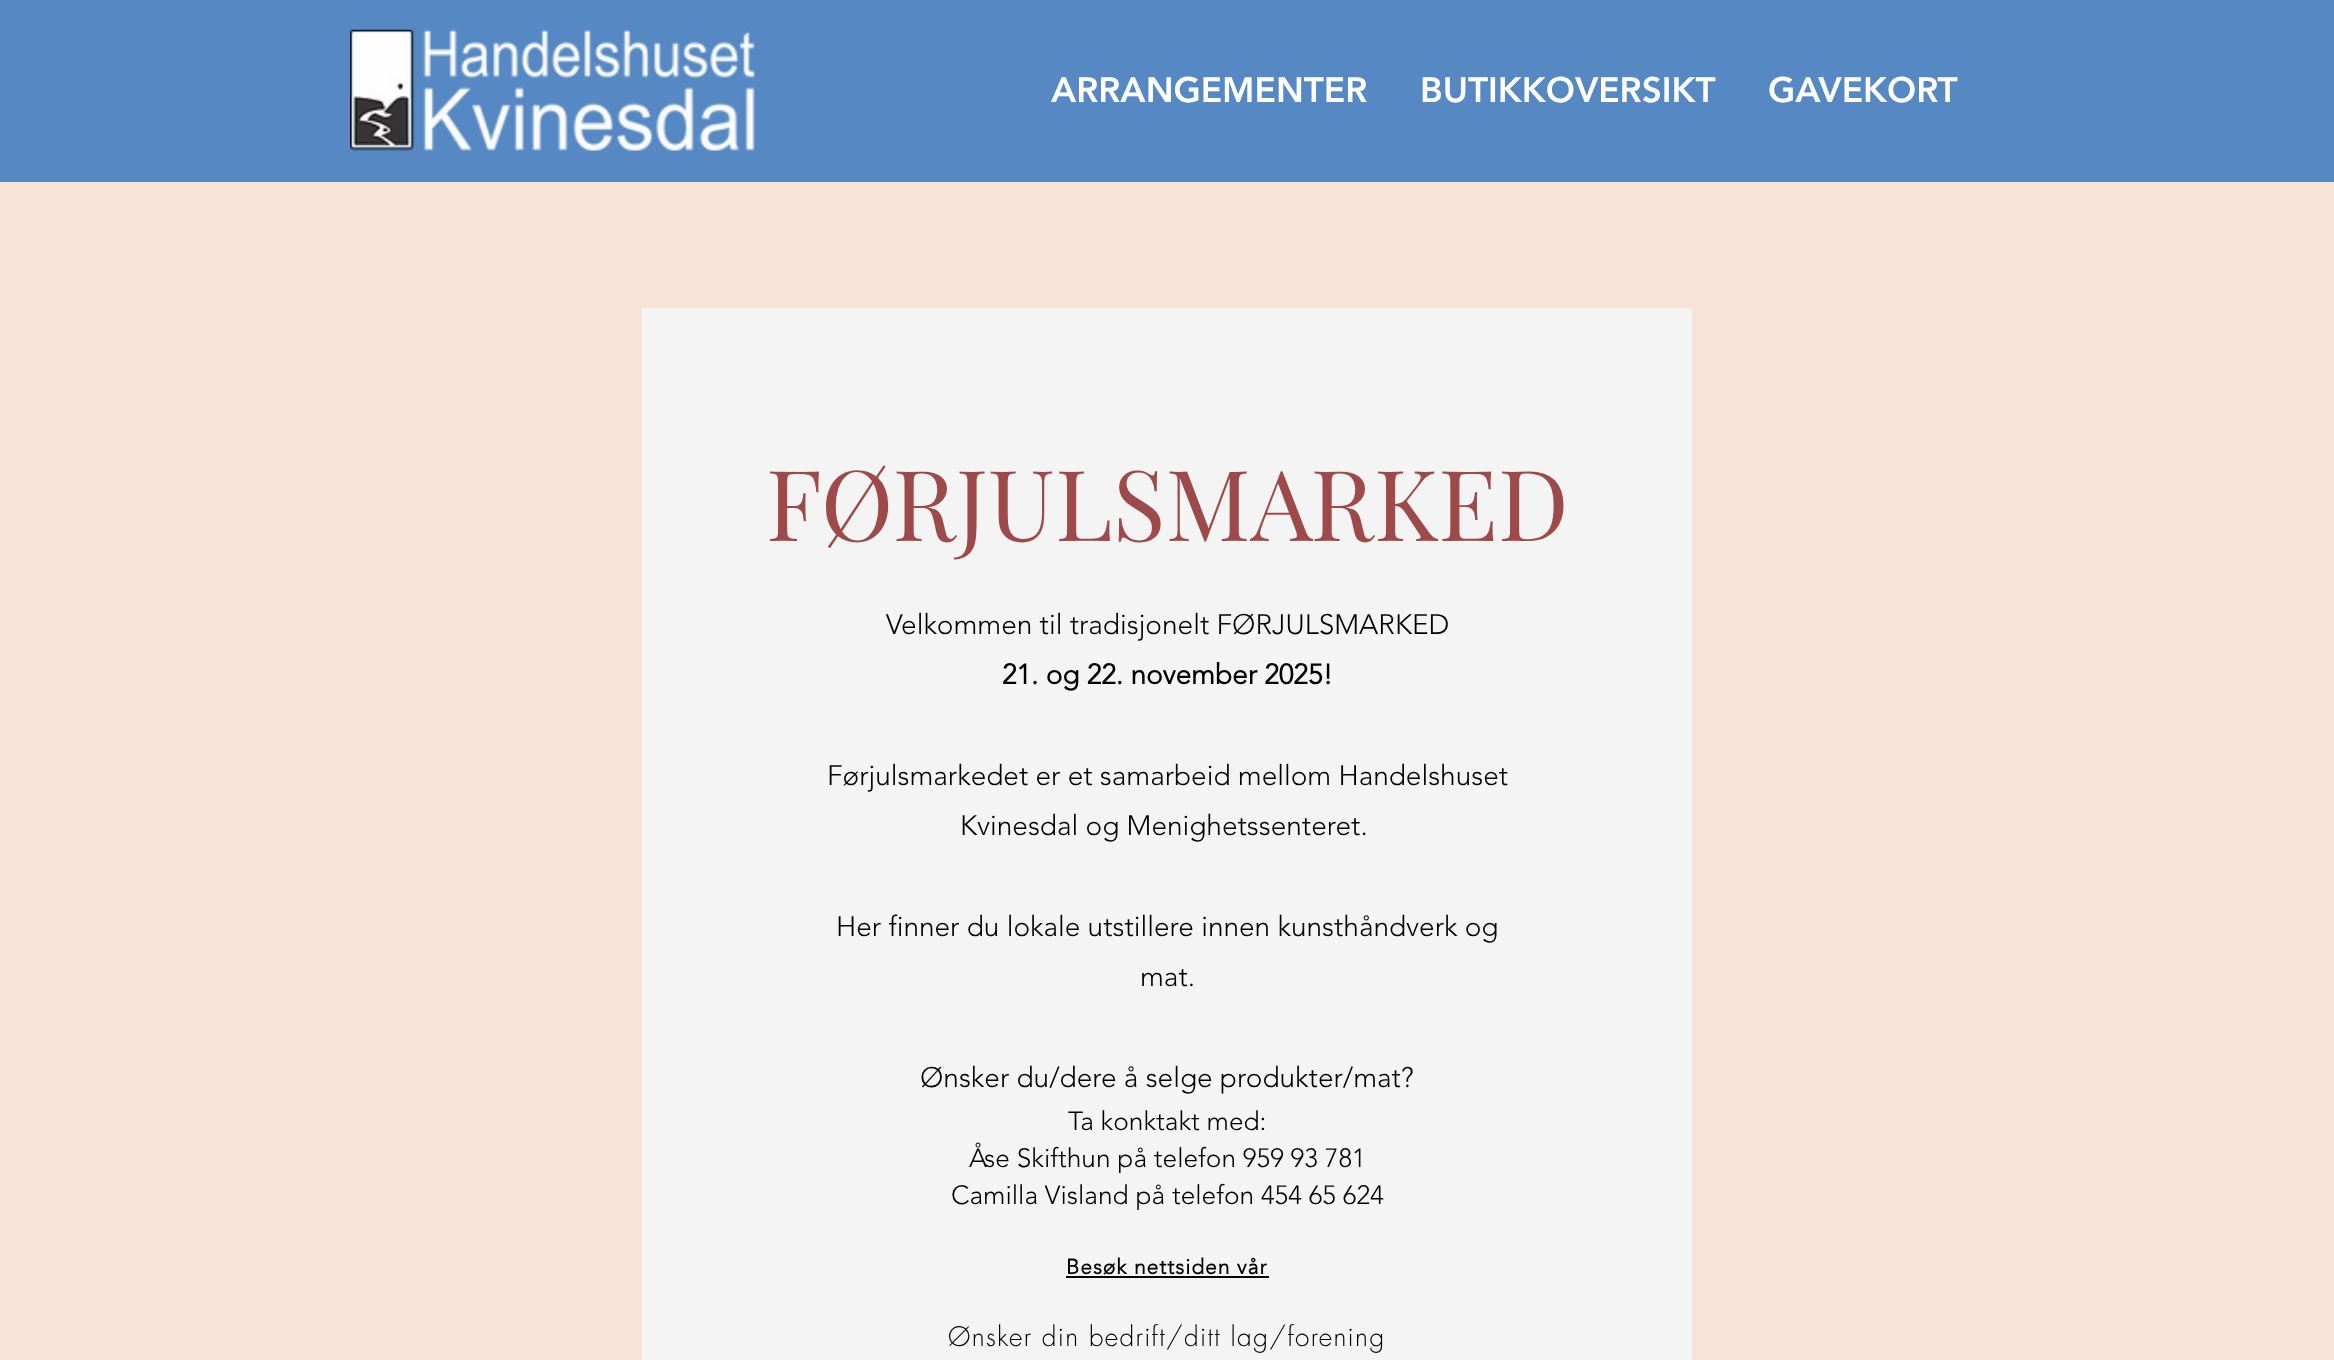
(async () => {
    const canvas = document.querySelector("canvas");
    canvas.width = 2334;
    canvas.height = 1360;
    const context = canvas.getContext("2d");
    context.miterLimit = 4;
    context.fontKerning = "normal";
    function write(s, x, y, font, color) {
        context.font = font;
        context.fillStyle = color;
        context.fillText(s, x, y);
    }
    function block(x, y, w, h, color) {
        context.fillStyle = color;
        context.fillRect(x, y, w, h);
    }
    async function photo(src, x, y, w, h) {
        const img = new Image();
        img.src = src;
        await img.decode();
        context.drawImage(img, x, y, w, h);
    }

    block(0, 0, 2334, 1360, "rgb(247, 228, 215)");
    block(0, 0, 2334, 182, "rgb(86, 137, 195)");
    await photo("media/1.png", 350, 29, 405, 122);
    write("ARRANGEMENTER", 1051, 102, "900 35px 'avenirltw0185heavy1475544'", "rgb(255, 255, 255)");
    write("BUTIKKOVERSIKT", 1420, 102, "900 35px 'avenirltw0185heavy1475544'", "rgb(255, 255, 255)");
    write("GAVEKORT", 1768, 102, "900 35px 'avenirltw0185heavy1475544'", "rgb(255, 255, 255)");
    block(642, 308, 1050, 1052, "rgb(244, 244, 244)");
    write("FØRJULSMARKED", 766, 541, "98px Playfair Display", "rgb(158, 74, 74)");
    write("Velkommen til tradisjonelt FØRJULSMARKED", 886, 634, "300 28px 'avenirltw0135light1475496'", "rgb(0, 0, 0)");
    write("21. og 22. november 2025!", 1002, 684, "bold 28px 'avenirltw0135light1475496'", "rgb(0, 0, 0)");
    write("Førjulsmarkedet er et samarbeid mellom Handelshuset", 827, 785, "300 28px 'avenirltw0135light1475496'", "rgb(0, 0, 0)");
    write("Kvinesdal og Menighetssenteret.", 960, 835, "300 28px 'avenirltw0135light1475496'", "rgb(0, 0, 0)");
    write("Her finner du lokale utstillere innen kunsthåndverk og", 836, 936, "300 28px 'avenirltw0135light1475496'", "rgb(0, 0, 0)");
    write("mat.", 1140, 986, "300 28px 'avenirltw0135light1475496'", "rgb(0, 0, 0)");
    write("Ønsker du/dere å selge produkter/mat?", 920, 1087, "300 28px 'avenirltw0135light1475496'", "rgb(0, 0, 0)");
    write("Ta konktakt med:", 1068, 1130, "300 26.25px 'avenirltw0135light1475496'", "rgb(0, 0, 0)");
    write("Åse Skifthun på telefon 959 93 781", 969, 1167, "300 26.25px 'avenirltw0135light1475496'", "rgb(0, 0, 0)");
    write("Camilla Visland på telefon 454 65 624", 951, 1204, "300 26.25px 'avenirltw0135light1475496'", "rgb(0, 0, 0)");
    context.letterSpacing = "1px";
    write("Besøk nettsiden vår", 1066, 1274, "bold 21px 'avenirltw0135light1475496'", "rgb(0, 0, 0)");
    block(1066, 1276, 203, 2, "rgb(0, 0, 0)");
    context.letterSpacing = "1.3px";
    write("Ønsker din bedrift/ditt lag/forening", 948, 1346, "300 26.25px futura", "rgb(0, 0, 0)");
})();
